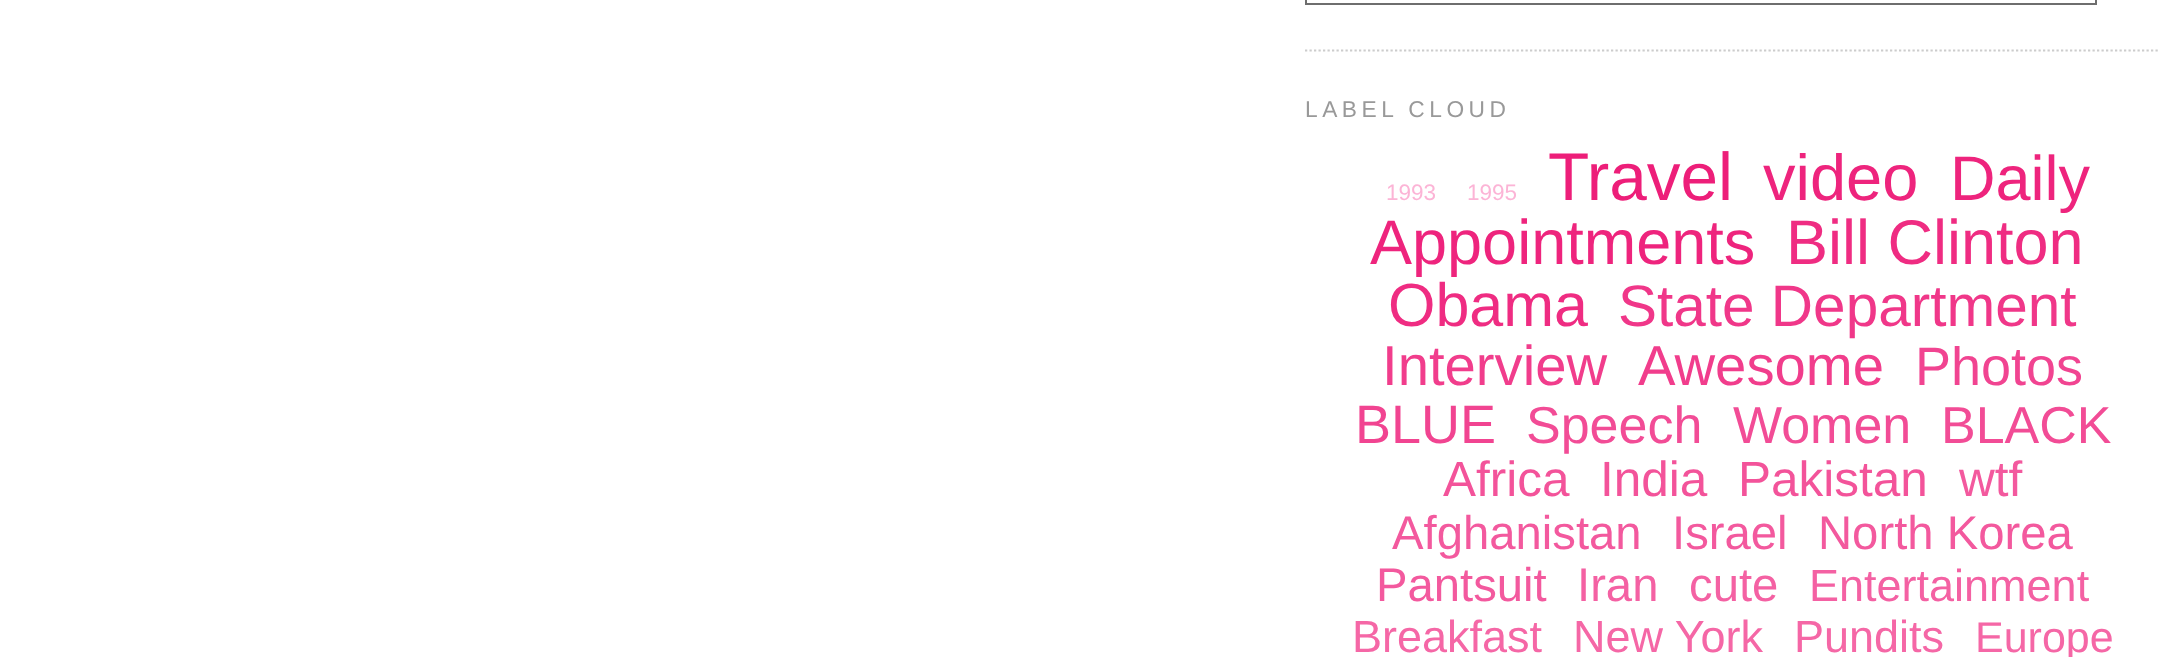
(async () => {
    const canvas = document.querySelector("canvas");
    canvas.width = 2183;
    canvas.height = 657;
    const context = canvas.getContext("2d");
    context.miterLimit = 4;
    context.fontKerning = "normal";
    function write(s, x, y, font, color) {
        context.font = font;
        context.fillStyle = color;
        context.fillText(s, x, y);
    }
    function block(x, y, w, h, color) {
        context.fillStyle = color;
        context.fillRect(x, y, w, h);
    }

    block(0, 0, 2183, 657, "rgb(255, 255, 255)");
    context.beginPath();
    context.moveTo(1305, 50.5);
    context.lineTo(2160, 50.5);
    context.strokeStyle = "rgb(204, 204, 204)";
    context.lineWidth = 2.2;
    context.setLineDash([2.25, 2.25]);
    context.stroke();
    context.strokeStyle = "rgb(110, 110, 110)";
    context.lineWidth = 2;
    context.setLineDash([]);
    context.strokeRect(1306, -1, 790, 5);
    context.letterSpacing = "4.5px";
    write("LABEL CLOUD", 1305, 117, "22.75px Liberation Sans", "rgb(153, 153, 153)");
    context.letterSpacing = "0px";
    write("1993", 1386, 200, "22.5px Liberation Sans", "rgb(252, 180, 214)");
    write("1995", 1467, 200, "22.5px Liberation Sans", "rgb(252, 180, 214)");
    write("Travel", 1548, 200, "67.5px Liberation Sans", "rgb(237, 30, 121)");
    write("video", 1763, 200, "65px Liberation Sans", "rgb(238, 36, 125)");
    write("Daily", 1950, 200, "63px Liberation Sans", "rgb(238, 36, 125)");
    write("Appointments", 1370, 264, "63px Liberation Sans", "rgb(238, 36, 125)");
    write("Bill Clinton", 1786, 264, "63px Liberation Sans", "rgb(239, 44, 130)");
    write("Obama", 1388, 326, "61px Liberation Sans", "rgb(239, 44, 130)");
    write("State Department", 1618, 326, "58.5px Liberation Sans", "rgb(240, 55, 137)");
    write("Interview", 1382, 385, "56.25px Liberation Sans", "rgb(241, 61, 140)");
    write("Awesome", 1638, 385, "56.25px Liberation Sans", "rgb(241, 61, 140)");
    write("Photos", 1915, 385, "54px Liberation Sans", "rgb(241, 68, 145)");
    write("BLUE", 1355, 443, "54px Liberation Sans", "rgb(241, 68, 145)");
    write("Speech", 1526, 443, "52px Liberation Sans", "rgb(242, 76, 150)");
    write("Women", 1733, 443, "52px Liberation Sans", "rgb(242, 76, 150)");
    write("BLACK", 1941, 443, "52px Liberation Sans", "rgb(242, 76, 150)");
    write("Africa", 1443, 496, "49.5px Liberation Sans", "rgb(243, 83, 154)");
    write("India", 1600, 496, "49.5px Liberation Sans", "rgb(243, 83, 154)");
    write("Pakistan", 1738, 496, "49.5px Liberation Sans", "rgb(243, 83, 154)");
    write("wtf", 1959, 496, "49.5px Liberation Sans", "rgb(243, 89, 158)");
    write("Afghanistan", 1392, 549, "47.25px Liberation Sans", "rgb(243, 89, 158)");
    write("Israel", 1672, 549, "47.25px Liberation Sans", "rgb(243, 89, 158)");
    write("North Korea", 1818, 549, "47.25px Liberation Sans", "rgb(243, 89, 158)");
    write("Pantsuit", 1376, 601, "47.25px Liberation Sans", "rgb(243, 89, 158)");
    write("Iran", 1577, 601, "47.25px Liberation Sans", "rgb(244, 97, 163)");
    write("cute", 1689, 601, "47.25px Liberation Sans", "rgb(244, 97, 163)");
    write("Entertainment", 1809, 601, "45px Liberation Sans", "rgb(244, 97, 163)");
    write("Breakfast", 1352, 652, "45px Liberation Sans", "rgb(245, 103, 166)");
    write("New York", 1573, 652, "45px Liberation Sans", "rgb(245, 103, 166)");
    write("Pundits", 1794, 652, "45px Liberation Sans", "rgb(245, 103, 166)");
    write("Europe", 1975, 652, "43px Liberation Sans", "rgb(245, 103, 166)");
})();
